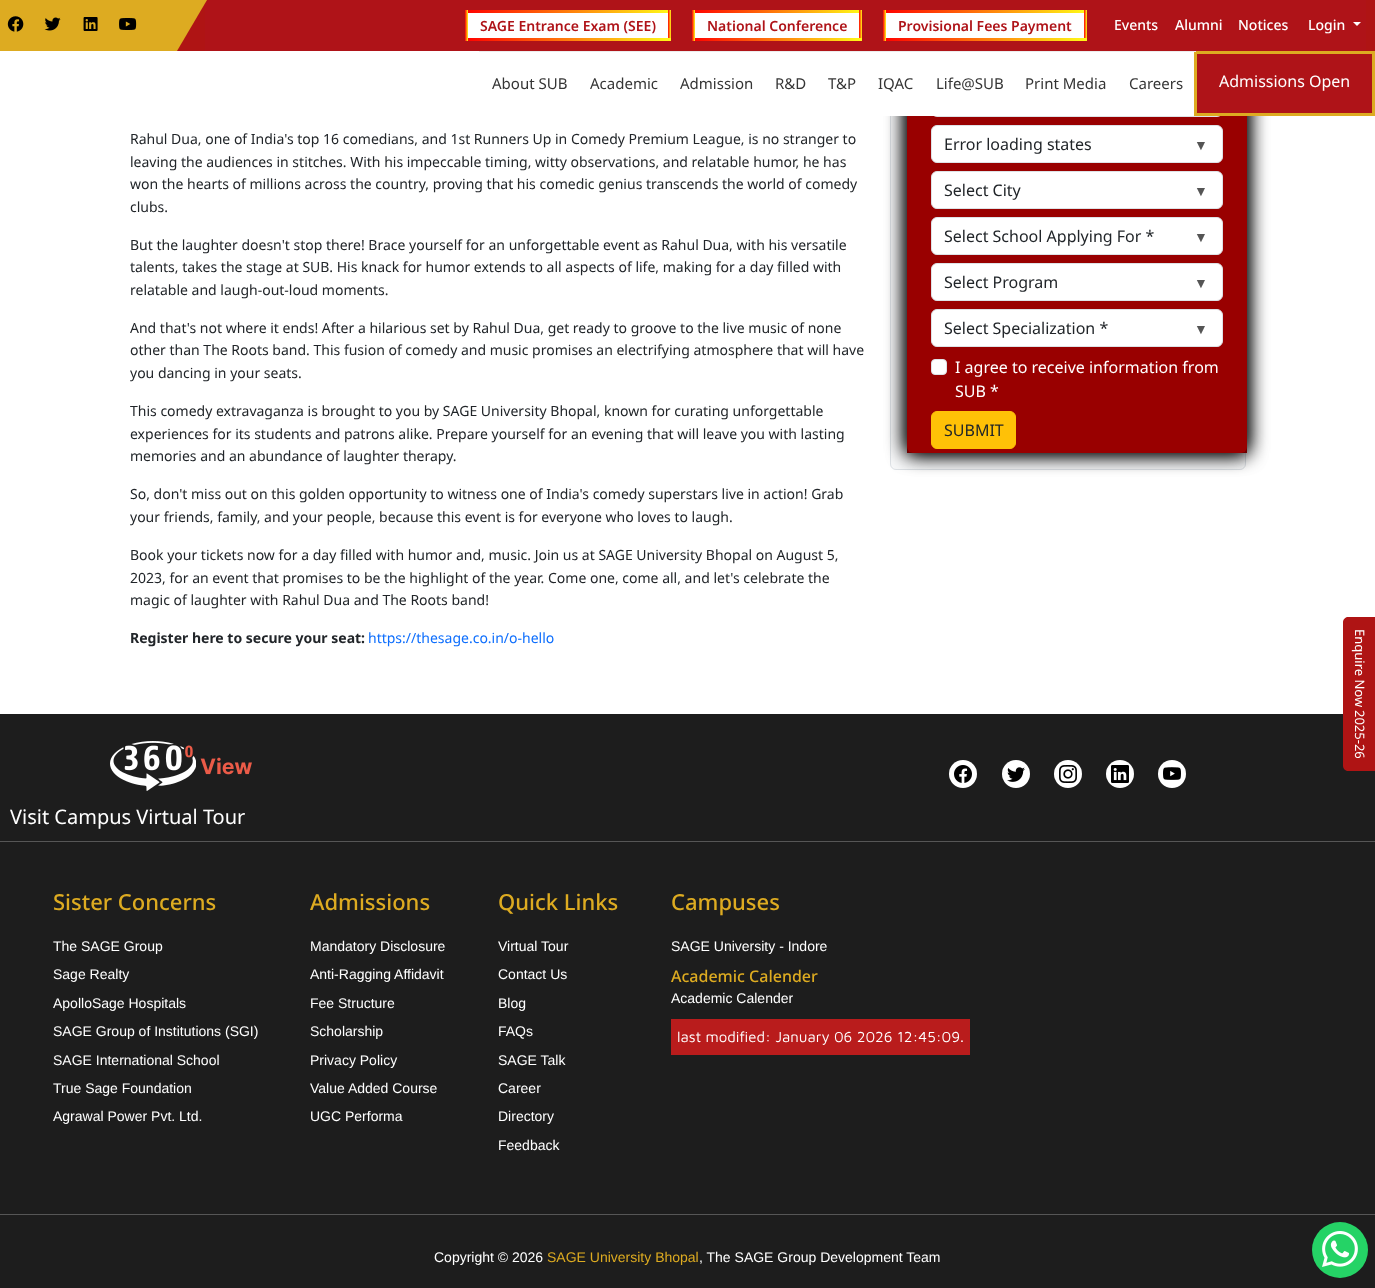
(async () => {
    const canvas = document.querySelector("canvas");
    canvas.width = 1375;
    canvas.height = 1288;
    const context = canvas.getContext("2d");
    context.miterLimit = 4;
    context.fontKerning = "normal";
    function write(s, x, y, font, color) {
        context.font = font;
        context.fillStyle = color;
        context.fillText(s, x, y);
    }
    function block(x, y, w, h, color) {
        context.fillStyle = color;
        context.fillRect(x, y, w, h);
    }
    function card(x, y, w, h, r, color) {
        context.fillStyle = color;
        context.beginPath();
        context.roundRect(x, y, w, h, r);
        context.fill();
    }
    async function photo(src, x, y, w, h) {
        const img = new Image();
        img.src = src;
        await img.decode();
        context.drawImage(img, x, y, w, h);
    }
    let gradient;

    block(0, 0, 1375, 1288, "rgb(255, 255, 255)");
    context.fillStyle = "rgb(248, 249, 250)";
    context.beginPath();
    context.roundRect(890.5, -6.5, 355, 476, 5.5);
    context.fill();
    context.strokeStyle = "rgb(222, 226, 230)";
    context.stroke();
    context.fillStyle = "rgb(0, 0, 0)";
    context.filter = "blur(10px)";
    context.beginPath();
    context.rect(907, -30, 340, 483);
    context.fill();
    context.filter = "none";
    block(907, 447, 340, 6, "rgb(153, 0, 0)");
    context.fillStyle = "rgb(0, 0, 0)";
    context.filter = "blur(10px)";
    context.beginPath();
    context.roundRect(907, -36, 340, 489, 6);
    context.fill();
    context.filter = "none";
    card(907, -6, 340, 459, 6, "rgb(153, 0, 0)");
    block(177, 0, 1198, 51, "rgb(175, 20, 20)");
    block(205, 0, 1161, 51, "rgb(175, 19, 24)");
    context.fillStyle = "rgb(221, 171, 33)";
    context.beginPath();
    context.moveTo(-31, 0);
    context.lineTo(207, 0);
    context.lineTo(177, 51);
    context.lineTo(-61, 51);
    context.closePath();
    context.fill();
    await photo("media/1.png", 7, 16, 17, 16);
    await photo("media/2.png", 44, 17, 17, 14);
    await photo("media/3.png", 83, 17, 15, 14);
    await photo("media/4.png", 119, 18, 18, 12);
    card(465, 10, 206, 31, 1, "rgb(255, 255, 255)");
    gradient = context.createLinearGradient(465, 12, 671, 11);
    gradient.addColorStop(0, "rgb(255, 0, 0)");
    gradient.addColorStop(1, "rgb(255, 251, 23)");
    context.fillStyle = gradient;
    context.beginPath();
    context.roundRect(465, 10, 206, 3, [1, 1, 0, 0]);
    context.fill();
    gradient = context.createLinearGradient(668, 26, 671, 26);
    gradient.addColorStop(0, "rgb(255, 0, 0)");
    gradient.addColorStop(1, "rgb(255, 251, 23)");
    context.fillStyle = gradient;
    context.beginPath();
    context.roundRect(668, 10, 3, 31, [0, 1, 1, 0]);
    context.fill();
    gradient = context.createLinearGradient(465, 40, 671, 39);
    gradient.addColorStop(0, "rgb(255, 0, 0)");
    gradient.addColorStop(1, "rgb(255, 251, 23)");
    context.fillStyle = gradient;
    context.beginPath();
    context.roundRect(465, 38, 206, 3, [0, 0, 1, 1]);
    context.fill();
    gradient = context.createLinearGradient(465, 26, 468, 26);
    gradient.addColorStop(0, "rgb(255, 0, 0)");
    gradient.addColorStop(1, "rgb(255, 251, 23)");
    context.fillStyle = gradient;
    context.beginPath();
    context.roundRect(465, 10, 3, 31, [1, 0, 0, 1]);
    context.fill();
    write("SAGE Entrance Exam (SEE)", 480, 31, "600 14px Noto Sans", "rgb(175, 19, 24)");
    card(692, 10, 170, 31, 1, "rgb(255, 255, 255)");
    gradient = context.createLinearGradient(692, 12, 862, 11);
    gradient.addColorStop(0, "rgb(255, 0, 0)");
    gradient.addColorStop(1, "rgb(255, 251, 23)");
    context.fillStyle = gradient;
    context.beginPath();
    context.roundRect(692, 10, 170, 3, [1, 1, 0, 0]);
    context.fill();
    gradient = context.createLinearGradient(859, 26, 862, 26);
    gradient.addColorStop(0, "rgb(255, 0, 0)");
    gradient.addColorStop(1, "rgb(255, 251, 23)");
    context.fillStyle = gradient;
    context.beginPath();
    context.roundRect(859, 10, 3, 31, [0, 1, 1, 0]);
    context.fill();
    gradient = context.createLinearGradient(692, 40, 862, 39);
    gradient.addColorStop(0, "rgb(255, 0, 0)");
    gradient.addColorStop(1, "rgb(255, 251, 23)");
    context.fillStyle = gradient;
    context.beginPath();
    context.roundRect(692, 38, 170, 3, [0, 0, 1, 1]);
    context.fill();
    gradient = context.createLinearGradient(692, 26, 695, 26);
    gradient.addColorStop(0, "rgb(255, 0, 0)");
    gradient.addColorStop(1, "rgb(255, 251, 23)");
    context.fillStyle = gradient;
    context.beginPath();
    context.roundRect(692, 10, 3, 31, [1, 0, 0, 1]);
    context.fill();
    write("National Conference", 707, 31, "600 14px Noto Sans", "rgb(175, 19, 24)");
    card(883, 10, 204, 31, 1, "rgb(255, 255, 255)");
    gradient = context.createLinearGradient(883, 12, 1087, 11);
    gradient.addColorStop(0, "rgb(255, 0, 0)");
    gradient.addColorStop(1, "rgb(255, 251, 23)");
    context.fillStyle = gradient;
    context.beginPath();
    context.roundRect(883, 10, 204, 3, [1, 1, 0, 0]);
    context.fill();
    gradient = context.createLinearGradient(1084, 26, 1087, 26);
    gradient.addColorStop(0, "rgb(255, 0, 0)");
    gradient.addColorStop(1, "rgb(255, 251, 23)");
    context.fillStyle = gradient;
    context.beginPath();
    context.roundRect(1084, 10, 3, 31, [0, 1, 1, 0]);
    context.fill();
    gradient = context.createLinearGradient(883, 40, 1087, 39);
    gradient.addColorStop(0, "rgb(255, 0, 0)");
    gradient.addColorStop(1, "rgb(255, 251, 23)");
    context.fillStyle = gradient;
    context.beginPath();
    context.roundRect(883, 38, 204, 3, [0, 0, 1, 1]);
    context.fill();
    gradient = context.createLinearGradient(883, 26, 886, 26);
    gradient.addColorStop(0, "rgb(255, 0, 0)");
    gradient.addColorStop(1, "rgb(255, 251, 23)");
    context.fillStyle = gradient;
    context.beginPath();
    context.roundRect(883, 10, 3, 31, [1, 0, 0, 1]);
    context.fill();
    write("Provisional Fees Payment", 898, 31, "600 14px Noto Sans", "rgb(175, 19, 24)");
    write("Events", 1114, 30, "500 14px Noto Sans", "rgb(255, 255, 255)");
    write("Alumni", 1175, 30, "500 14px Noto Sans", "rgb(255, 255, 255)");
    write("Notices", 1238, 30, "500 14px Noto Sans", "rgb(255, 255, 255)");
    write("Login", 1308, 30, "500 14px Noto Sans", "rgb(255, 255, 255)");
    context.beginPath();
    context.moveTo(1353, 22);
    context.lineTo(1361, 22);
    context.lineTo(1357, 26);
    context.closePath();
    context.fill();
    context.beginPath();
    context.roundRect(931.5, 79.5, 291, 37, 5.5);
    context.stroke();
    block(881, 51, 313, 65, "rgb(255, 255, 255)");
    block(479, 51, 641, 1, "rgb(237, 237, 237)");
    write("About SUB", 492, 89, "15px Noto Sans", "rgb(53, 53, 53)");
    write("Academic", 590, 89, "15px Noto Sans", "rgb(53, 53, 53)");
    write("Admission", 680, 89, "15px Noto Sans", "rgb(53, 53, 53)");
    write("R&D", 775, 89, "15px Noto Sans", "rgb(53, 53, 53)");
    write("T&P", 828, 89, "15px Noto Sans", "rgb(53, 53, 53)");
    write("IQAC", 878, 89, "15px Noto Sans", "rgb(53, 53, 53)");
    write("Life@SUB", 936, 89, "15px Noto Sans", "rgb(53, 53, 53)");
    write("Print Media", 1025, 89, "15px Noto Sans", "rgb(53, 53, 53)");
    context.fillStyle = "rgb(175, 19, 24)";
    context.beginPath();
    context.rect(1195.5, 52.5, 178, 62);
    context.fill();
    context.strokeStyle = "rgb(221, 171, 33)";
    context.lineWidth = 3;
    context.stroke();
    block(1116, 51, 80, 1, "rgb(237, 237, 237)");
    write("Careers", 1129, 89, "15px Noto Sans", "rgb(53, 53, 53)");
    write("Admissions Open", 1219, 87, "16px Noto Sans", "rgb(255, 255, 255)");
    write("Rahul Dua, one of India's top 16 comedians, and 1st Runners Up in Comedy Premium League, is no stranger to", 130, 144, "14px Noto Sans", "rgb(33, 37, 41)");
    write("leaving the audiences in stitches. With his impeccable timing, witty observations, and relatable humor, he has", 130, 167, "14px Noto Sans", "rgb(33, 37, 41)");
    write("won the hearts of millions across the country, proving that his comedic genius transcends the world of comedy", 130, 189, "14px Noto Sans", "rgb(33, 37, 41)");
    write("clubs.", 130, 212, "14px Noto Sans", "rgb(33, 37, 41)");
    write("But the laughter doesn't stop there! Brace yourself for an unforgettable event as Rahul Dua, with his versatile", 130, 250, "14px Noto Sans", "rgb(33, 37, 41)");
    write("talents, takes the stage at SUB. His knack for humor extends to all aspects of life, making for a day filled with", 130, 272, "14px Noto Sans", "rgb(33, 37, 41)");
    write("relatable and laugh-out-loud moments.", 130, 295, "14px Noto Sans", "rgb(33, 37, 41)");
    write("And that's not where it ends! After a hilarious set by Rahul Dua, get ready to groove to the live music of none", 130, 333, "14px Noto Sans", "rgb(33, 37, 41)");
    write("other than The Roots band. This fusion of comedy and music promises an electrifying atmosphere that will have", 130, 355, "14px Noto Sans", "rgb(33, 37, 41)");
    write("you dancing in your seats.", 130, 378, "14px Noto Sans", "rgb(33, 37, 41)");
    write("This comedy extravaganza is brought to you by SAGE University Bhopal, known for curating unforgettable", 130, 416, "14px Noto Sans", "rgb(33, 37, 41)");
    write("experiences for its students and patrons alike. Prepare yourself for an evening that will leave you with lasting", 130, 439, "14px Noto Sans", "rgb(33, 37, 41)");
    write("memories and an abundance of laughter therapy.", 130, 461, "14px Noto Sans", "rgb(33, 37, 41)");
    write("So, don't miss out on this golden opportunity to witness one of India's comedy superstars live in action! Grab", 130, 499, "14px Noto Sans", "rgb(33, 37, 41)");
    write("your friends, family, and your people, because this event is for everyone who loves to laugh.", 130, 522, "14px Noto Sans", "rgb(33, 37, 41)");
    write("Book your tickets now for a day filled with humor and, music. Join us at SAGE University Bhopal on August 5,", 130, 560, "14px Noto Sans", "rgb(33, 37, 41)");
    write("2023, for an event that promises to be the highlight of the year. Come one, come all, and let's celebrate the", 130, 583, "14px Noto Sans", "rgb(33, 37, 41)");
    write("magic of laughter with Rahul Dua and The Roots band!", 130, 605, "14px Noto Sans", "rgb(33, 37, 41)");
    write("Register here to secure your seat:", 130, 643, "bold 14px Noto Sans", "rgb(33, 37, 41)");
    write("https://thesage.co.in/o-hello", 368, 643, "14px Noto Sans", "rgb(13, 110, 253)");
    context.fillStyle = "rgb(255, 255, 255)";
    context.beginPath();
    context.roundRect(931.5, 125.5, 291, 37, 5.5);
    context.fill();
    context.strokeStyle = "rgb(222, 226, 230)";
    context.lineWidth = 1;
    context.stroke();
    write("Error loading states", 944, 150, "16px Noto Sans", "rgb(33, 37, 41)");
    write("▼", 1194, 150, "14px Liberation Sans", "rgb(85, 85, 85)");
    context.fillStyle = "rgb(255, 255, 255)";
    context.beginPath();
    context.roundRect(931.5, 171.5, 291, 37, 5.5);
    context.fill();
    context.stroke();
    write("Select City", 944, 196, "16px Noto Sans", "rgb(33, 37, 41)");
    write("▼", 1194, 196, "14px Liberation Sans", "rgb(85, 85, 85)");
    context.fillStyle = "rgb(255, 255, 255)";
    context.beginPath();
    context.roundRect(931.5, 217.5, 291, 37, 5.5);
    context.fill();
    context.stroke();
    write("Select School Applying For *", 944, 242, "16px Noto Sans", "rgb(33, 37, 41)");
    write("▼", 1194, 242, "14px Liberation Sans", "rgb(85, 85, 85)");
    context.fillStyle = "rgb(255, 255, 255)";
    context.beginPath();
    context.roundRect(931.5, 263.5, 291, 37, 5.5);
    context.fill();
    context.stroke();
    write("Select Program", 944, 288, "16px Noto Sans", "rgb(33, 37, 41)");
    write("▼", 1194, 288, "14px Liberation Sans", "rgb(85, 85, 85)");
    context.fillStyle = "rgb(255, 255, 255)";
    context.beginPath();
    context.roundRect(931.5, 309.5, 291, 37, 5.5);
    context.fill();
    context.stroke();
    write("Select Specialization *", 944, 334, "16px Noto Sans", "rgb(33, 37, 41)");
    write("▼", 1194, 334, "14px Liberation Sans", "rgb(85, 85, 85)");
    context.fillStyle = "rgb(255, 255, 255)";
    context.beginPath();
    context.roundRect(931.5, 359.5, 15, 15, 3.5);
    context.fill();
    context.stroke();
    write("I agree to receive information from", 955, 373, "16px Noto Sans", "rgb(255, 255, 255)");
    write("SUB *", 955, 397, "16px Noto Sans", "rgb(255, 255, 255)");
    context.fillStyle = "rgb(255, 193, 7)";
    context.beginPath();
    context.roundRect(931.5, 411.5, 84, 37, 5.5);
    context.fill();
    context.strokeStyle = "rgb(255, 193, 7)";
    context.stroke();
    write("SUBMIT", 944, 436, "16px Noto Sans", "rgb(33, 37, 41)");
    block(0, 714, 1375, 574, "rgb(29, 29, 29)");
    context.fillStyle = "rgb(175, 20, 20)";
    context.beginPath();
    context.moveTo(1375, 617);
    context.lineTo(1375, 771);
    context.lineTo(1348, 771);
    context.bezierCurveTo(1346, 771, 1343, 769, 1343, 766);
    context.lineTo(1343, 622);
    context.bezierCurveTo(1343, 619, 1346, 617, 1348, 617);
    context.closePath();
    context.fill();
    context.font = "13px Noto Sans";
    context.fillStyle = "rgb(255, 255, 255)";
    context.save();
    context.translate(1355, 629);
    context.rotate(90 * Math.PI / 180);
    context.fillText("Enquire Now", 0, 0);
    context.restore();
    context.save();
    context.translate(1355, 710);
    context.rotate(90 * Math.PI / 180);
    context.fillText("2025-26", 0, 0);
    context.restore();
    context.beginPath();
    context.arc(963, 774, 14, 0, Math.PI * 2);
    context.fill();
    await photo("media/5.png", 954, 765, 18, 18);
    context.beginPath();
    context.arc(1016, 774, 14, 0, Math.PI * 2);
    context.fill();
    await photo("media/6.png", 1007, 767, 18, 15);
    context.beginPath();
    context.arc(1068, 774, 14, 0, Math.PI * 2);
    context.fill();
    await photo("media/7.png", 1059, 765, 18, 18);
    context.beginPath();
    context.arc(1120, 774, 14, 0, Math.PI * 2);
    context.fill();
    await photo("media/8.png", 1111, 765, 18, 18);
    context.beginPath();
    context.arc(1172, 774, 14, 0, Math.PI * 2);
    context.fill();
    await photo("media/9.png", 1163, 767, 18, 13);
    await photo("media/10.png", 110, 741, 142, 50);
    write("Visit Campus Virtual Tour", 10, 824, "20px Noto Sans", "rgb(255, 255, 255)");
    block(0, 841, 1375, 1, "rgb(86, 86, 86)");
    write("Sister Concerns", 53, 910, "500 22px Noto Sans", "rgb(221, 171, 33)");
    write("The SAGE Group", 53, 951, "14px Liberation Sans", "rgb(255, 255, 255)");
    write("Sage Realty", 53, 979, "14px Liberation Sans", "rgb(255, 255, 255)");
    write("ApolloSage Hospitals", 53, 1008, "14px Liberation Sans", "rgb(255, 255, 255)");
    write("SAGE Group of Institutions (SGI)", 53, 1036, "14px Liberation Sans", "rgb(255, 255, 255)");
    write("SAGE International School", 53, 1065, "14px Liberation Sans", "rgb(255, 255, 255)");
    write("True Sage Foundation", 53, 1093, "14px Liberation Sans", "rgb(255, 255, 255)");
    write("Agrawal Power Pvt. Ltd.", 53, 1121, "14px Liberation Sans", "rgb(255, 255, 255)");
    write("Admissions", 310, 910, "500 22px Noto Sans", "rgb(221, 171, 33)");
    write("Mandatory Disclosure", 310, 951, "14px Liberation Sans", "rgb(255, 255, 255)");
    write("Anti-Ragging Affidavit", 310, 979, "14px Liberation Sans", "rgb(255, 255, 255)");
    write("Fee Structure", 310, 1008, "14px Liberation Sans", "rgb(255, 255, 255)");
    write("Scholarship", 310, 1036, "14px Liberation Sans", "rgb(255, 255, 255)");
    write("Privacy Policy", 310, 1065, "14px Liberation Sans", "rgb(255, 255, 255)");
    write("Value Added Course", 310, 1093, "14px Liberation Sans", "rgb(255, 255, 255)");
    write("UGC Performa", 310, 1121, "14px Liberation Sans", "rgb(255, 255, 255)");
    write("Quick Links", 498, 910, "500 22px Noto Sans", "rgb(221, 171, 33)");
    write("Virtual Tour", 498, 951, "14px Liberation Sans", "rgb(255, 255, 255)");
    write("Contact Us", 498, 979, "14px Liberation Sans", "rgb(255, 255, 255)");
    write("Blog", 498, 1008, "14px Liberation Sans", "rgb(255, 255, 255)");
    write("FAQs", 498, 1036, "14px Liberation Sans", "rgb(255, 255, 255)");
    write("SAGE Talk", 498, 1065, "14px Liberation Sans", "rgb(255, 255, 255)");
    write("Career", 498, 1093, "14px Liberation Sans", "rgb(255, 255, 255)");
    write("Directory", 498, 1121, "14px Liberation Sans", "rgb(255, 255, 255)");
    write("Feedback", 498, 1150, "14px Liberation Sans", "rgb(255, 255, 255)");
    write("Campuses", 671, 910, "500 22px Noto Sans", "rgb(221, 171, 33)");
    write("SAGE University - Indore", 671, 951, "14px Liberation Sans", "rgb(255, 255, 255)");
    write("Academic Calender", 671, 982, "500 16px Noto Sans", "rgb(221, 171, 33)");
    write("Academic Calender", 671, 1003, "14px Liberation Sans", "rgb(255, 255, 255)");
    block(671, 1019, 299, 36, "rgb(185, 28, 28)");
    write("last modified: January 06 2026 12:45:09.", 677, 1042, "15px Maven Pro", "rgb(255, 255, 255)");
    block(0, 1214, 1375, 1, "rgb(86, 86, 86)");
    write("Copyright © 2026", 434, 1262, "14px Liberation Sans", "rgb(255, 255, 255)");
    write("SAGE University Bhopal", 547, 1262, "14px Liberation Sans", "rgb(221, 171, 33)");
    write(", The SAGE Group Development Team", 699, 1262, "14px Liberation Sans", "rgb(255, 255, 255)");
    context.fillStyle = "rgb(37, 211, 102)";
    context.beginPath();
    context.arc(1340, 1250, 28, 0, Math.PI * 2);
    context.fill();
    await photo("media/11.png", 1322, 1231, 36, 36);
})();
